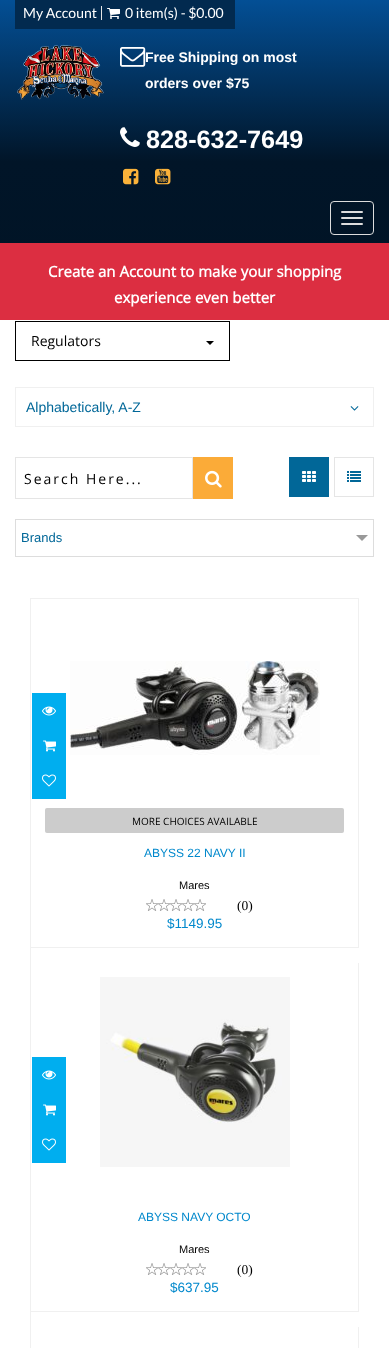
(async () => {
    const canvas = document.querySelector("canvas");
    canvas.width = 389;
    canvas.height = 1348;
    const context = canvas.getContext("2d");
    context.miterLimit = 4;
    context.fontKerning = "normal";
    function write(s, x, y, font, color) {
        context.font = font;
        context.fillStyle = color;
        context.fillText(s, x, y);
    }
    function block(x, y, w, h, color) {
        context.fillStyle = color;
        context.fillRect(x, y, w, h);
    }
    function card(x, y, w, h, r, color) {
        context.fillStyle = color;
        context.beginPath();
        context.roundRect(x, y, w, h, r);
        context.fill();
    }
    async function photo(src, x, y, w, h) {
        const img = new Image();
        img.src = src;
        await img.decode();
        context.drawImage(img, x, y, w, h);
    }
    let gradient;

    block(0, 0, 389, 1348, "rgb(255, 255, 255)");
    gradient = context.createLinearGradient(195, 1348, 195, 0);
    gradient.addColorStop(0, "rgb(0, 10, 17)");
    gradient.addColorStop(0.88, "rgb(1, 21, 40)");
    gradient.addColorStop(1, "rgb(3, 79, 149)");
    context.fillStyle = gradient;
    context.fillRect(0, 0, 389, 243);
    block(15, 0, 220, 29, "rgb(2, 42, 79)");
    block(101, 6, 1, 14, "rgb(229, 229, 229)");
    write("My Account", 23, 18, "14px Lato", "rgb(255, 255, 255)");
    await photo("media/1.png", 107, 8, 13, 11);
    write("0 item(s) - $0.00", 125, 18, "14px Lato", "rgb(255, 255, 255)");
    await photo("media/2.png", 17, 44, 87, 56);
    await photo("media/3.png", 120, 47, 26, 20);
    write("Free Shipping on most", 145, 62, "bold 14px Liberation Sans", "rgb(255, 255, 255)");
    write("orders over $75", 145, 88, "bold 14px Liberation Sans", "rgb(255, 255, 255)");
    await photo("media/4.png", 120, 127, 20, 20);
    write("828-632-7649", 146, 148, "bold 25.25px Liberation Sans", "rgb(255, 255, 255)");
    await photo("media/5.png", 123, 168, 16, 17);
    await photo("media/6.png", 155, 168, 16, 17);
    context.beginPath();
    context.roundRect(330.5, 201.5, 43, 33, 3.5);
    context.strokeStyle = "rgb(221, 221, 221)";
    context.stroke();
    card(341, 211, 22, 2, 1, "rgb(221, 221, 221)");
    card(341, 217, 22, 2, 1, "rgb(221, 221, 221)");
    card(341, 223, 22, 2, 1, "rgb(221, 221, 221)");
    block(0, 243, 389, 77, "rgb(220, 46, 65)");
    write("Create an Account to make your shopping", 48, 277, "bold 15px Open Sans", "rgb(255, 255, 255)");
    write("experience even better", 114, 303, "bold 15px Open Sans", "rgb(255, 255, 255)");
    context.strokeStyle = "rgb(0, 0, 0)";
    context.strokeRect(15.5, 321.5, 214, 39);
    write("Regulators", 31, 346, "14px Open Sans", "rgb(0, 0, 0)");
    context.beginPath();
    context.moveTo(206, 341);
    context.lineTo(214, 341);
    context.lineTo(210, 345);
    context.closePath();
    context.fill();
    context.strokeStyle = "rgb(240, 240, 240)";
    context.strokeRect(15.5, 387.5, 358, 39);
    write("Alphabetically, A-Z", 26, 412, "14px Liberation Sans", "rgb(1, 103, 152)");
    await photo("media/7.png", 350, 406, 9, 5);
    context.strokeStyle = "rgb(229, 229, 229)";
    context.strokeRect(15.5, 457.5, 177, 41);
    context.letterSpacing = "2px";
    write("Search Here...", 24, 484, "14px Open Sans", "rgb(0, 0, 0)");
    block(193, 457, 40, 42, "rgb(251, 171, 56)");
    await photo("media/8.png", 205, 470, 17, 18);
    block(289, 457, 40, 40, "rgb(1, 103, 152)");
    await photo("media/9.png", 302, 471, 14, 11);
    context.strokeRect(334.5, 457.5, 39, 39);
    await photo("media/10.png", 347, 471, 14, 11);
    context.strokeStyle = "rgb(221, 221, 221)";
    context.strokeRect(15.5, 519.5, 358, 37);
    context.letterSpacing = "0px";
    write("Brands", 21, 542, "13px Liberation Sans", "rgb(1, 103, 152)");
    context.fillStyle = "rgb(153, 153, 153)";
    context.beginPath();
    context.moveTo(356, 535);
    context.lineTo(368, 535);
    context.lineTo(362, 541);
    context.closePath();
    context.fill();
    block(30, 598, 329, 1, "rgb(240, 240, 240)");
    block(30, 598, 1, 750, "rgb(240, 240, 240)");
    block(358, 599, 1, 349, "rgb(240, 240, 240)");
    block(31, 947, 328, 1, "rgb(240, 240, 240)");
    block(32, 693, 34, 106, "rgb(0, 174, 239)");
    await photo("media/11.png", 42, 706, 14, 10);
    await photo("media/12.png", 43, 740, 13, 12);
    await photo("media/13.png", 42, 774, 14, 13);
    await photo("media/14.png", 70, 661, 250, 94);
    card(45, 808, 299, 25, 2, "rgb(204, 204, 204)");
    write("MORE CHOICES AVAILABLE", 132, 825, "10px Open Sans", "rgb(0, 0, 0)");
    write("ABYSS 22 NAVY II", 144, 857, "12px Liberation Sans", "rgb(0, 136, 204)");
    write("Mares", 179, 889, "11px Liberation Sans", "rgb(0, 0, 0)");
    await photo("media/15.png", 146, 899, 12, 12);
    await photo("media/15.png", 158, 899, 12, 12);
    await photo("media/15.png", 170, 899, 12, 12);
    await photo("media/15.png", 182, 899, 12, 12);
    await photo("media/15.png", 194, 899, 12, 12);
    write("(0)", 237, 910, "13.5px Liberation Serif", "rgb(0, 0, 0)");
    write("$1149.95", 167, 928, "13.5px Liberation Sans", "rgb(0, 136, 204)");
    block(358, 963, 1, 349, "rgb(240, 240, 240)");
    block(31, 1311, 328, 1, "rgb(240, 240, 240)");
    block(32, 1057, 34, 106, "rgb(0, 174, 239)");
    await photo("media/11.png", 42, 1070, 14, 10);
    await photo("media/12.png", 43, 1104, 13, 12);
    await photo("media/13.png", 42, 1138, 14, 13);
    await photo("media/16.png", 100, 977, 190, 190);
    write("ABYSS NAVY OCTO", 138, 1221, "12px Liberation Sans", "rgb(0, 136, 204)");
    write("Mares", 179, 1253, "11px Liberation Sans", "rgb(0, 0, 0)");
    await photo("media/15.png", 146, 1263, 12, 12);
    await photo("media/15.png", 158, 1263, 12, 12);
    await photo("media/15.png", 170, 1263, 12, 12);
    await photo("media/15.png", 182, 1263, 12, 12);
    await photo("media/15.png", 194, 1263, 12, 12);
    write("(0)", 237, 1274, "13.5px Liberation Serif", "rgb(0, 0, 0)");
    write("$637.95", 170, 1292, "13.5px Liberation Sans", "rgb(0, 136, 204)");
    block(358, 1327, 1, 21, "rgb(240, 240, 240)");
})();
